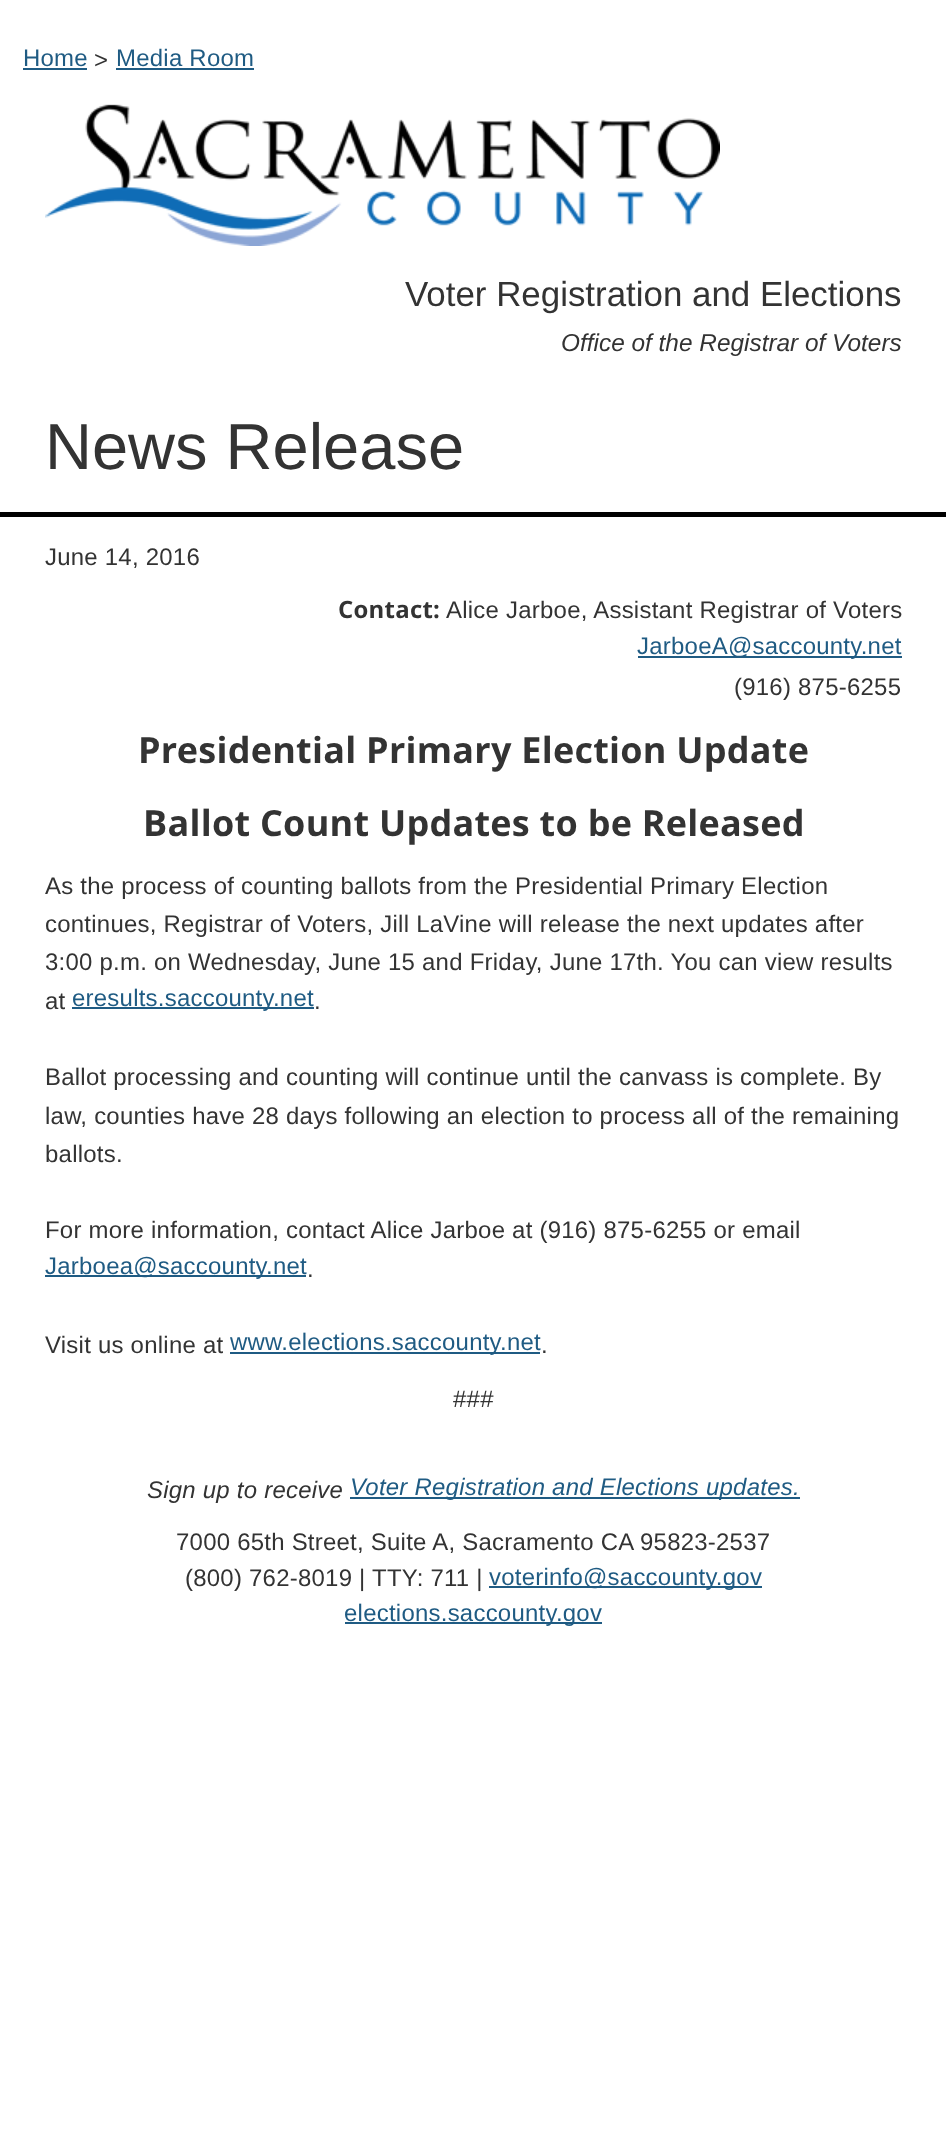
(async () => {
    const canvas = document.querySelector("canvas");
    canvas.width = 946;
    canvas.height = 2137;
    const context = canvas.getContext("2d");
    context.miterLimit = 4;
    context.fontKerning = "normal";
    function write(s, x, y, font, color) {
        context.font = font;
        context.fillStyle = color;
        context.fillText(s, x, y);
    }
    function block(x, y, w, h, color) {
        context.fillStyle = color;
        context.fillRect(x, y, w, h);
    }
    async function photo(src, x, y, w, h) {
        const img = new Image();
        img.src = src;
        await img.decode();
        context.drawImage(img, x, y, w, h);
    }

    block(0, 0, 946, 2137, "rgb(255, 255, 255)");
    block(0, 512, 946, 5, "rgb(0, 0, 0)");
    context.letterSpacing = "0.25px";
    write("Home", 23, 66, "23.95px Liberation Sans", "rgb(31, 91, 131)");
    block(23, 68, 64, 2, "rgb(31, 91, 131)");
    write(">", 94, 68, "23.95px Liberation Sans", "rgb(51, 51, 51)");
    write("Media Room", 116, 66, "23.95px Liberation Sans", "rgb(31, 91, 131)");
    block(116, 68, 138, 2, "rgb(31, 91, 131)");
    await photo("media/1.png", 45, 104, 675, 142);
    context.letterSpacing = "0px";
    write("Voter Registration and Elections", 405, 306, "34.9px Liberation Sans", "rgb(51, 51, 51)");
    write("Office of the Registrar of Voters", 561, 351, "italic 24.4px Liberation Sans", "rgb(51, 51, 51)");
    write("News Release", 45, 469, "65px Liberation Sans", "rgb(51, 51, 51)");
    context.letterSpacing = "0.25px";
    write("June 14, 2016", 45, 565, "23.95px Liberation Sans", "rgb(51, 51, 51)");
    write("Contact:", 338, 618, "bold 23.95px Open Sans", "rgb(51, 51, 51)");
    write("Alice Jarboe, Assistant Registrar of Voters", 446, 618, "23.95px Liberation Sans", "rgb(51, 51, 51)");
    block(638, 656, 264, 2, "rgb(31, 91, 131)");
    write("JarboeA@saccounty.net", 637, 654, "23.95px Liberation Sans", "rgb(31, 91, 131)");
    write("(916) 875-6255", 734, 695, "23.95px Liberation Sans", "rgb(51, 51, 51)");
    write("Presidential Primary Election Update", 138, 763, "bold 36px Open Sans", "rgb(51, 51, 51)");
    write("Ballot Count Updates to be Released", 143, 836, "bold 36px Open Sans", "rgb(51, 51, 51)");
    write("As the process of counting ballots from the Presidential Primary Election", 45, 894, "23.95px Liberation Sans", "rgb(51, 51, 51)");
    write("continues, Registrar of Voters, Jill LaVine will release the next updates after", 45, 932, "23.95px Liberation Sans", "rgb(51, 51, 51)");
    write("3:00 p.m. on Wednesday, June 15 and Friday, June 17th. You can view results", 45, 970, "23.95px Liberation Sans", "rgb(51, 51, 51)");
    write("at", 45, 1009, "23.95px Liberation Sans", "rgb(51, 51, 51)");
    block(72, 1007, 242, 2, "rgb(31, 91, 131)");
    write("eresults.saccounty.net", 72, 1006, "23.95px Liberation Sans", "rgb(31, 91, 131)");
    write(".", 314, 1009, "23.95px Liberation Sans", "rgb(51, 51, 51)");
    write("Ballot processing and counting will continue until the canvass is complete. By", 45, 1085, "23.95px Liberation Sans", "rgb(51, 51, 51)");
    write("law, counties have 28 days following an election to process all of the remaining", 45, 1124, "23.95px Liberation Sans", "rgb(51, 51, 51)");
    write("ballots.", 45, 1162, "23.95px Liberation Sans", "rgb(51, 51, 51)");
    write("For more information, contact Alice Jarboe at (916) 875-6255 or email", 45, 1238, "23.95px Liberation Sans", "rgb(51, 51, 51)");
    block(45, 1275, 261, 2, "rgb(31, 91, 131)");
    write("Jarboea@saccounty.net", 45, 1274, "23.95px Liberation Sans", "rgb(31, 91, 131)");
    write(".", 307, 1277, "23.95px Liberation Sans", "rgb(51, 51, 51)");
    write("Visit us online at", 45, 1353, "23.95px Liberation Sans", "rgb(51, 51, 51)");
    block(230, 1352, 310, 2, "rgb(31, 91, 131)");
    write("www.elections.saccounty.net", 230, 1350, "23.95px Liberation Sans", "rgb(31, 91, 131)");
    write(".", 541, 1353, "23.95px Liberation Sans", "rgb(51, 51, 51)");
    write("###", 453, 1407, "23.95px Liberation Sans", "rgb(51, 51, 51)");
    write("Sign up to receive", 147, 1498, "italic 23.95px Liberation Sans", "rgb(51, 51, 51)");
    block(350, 1497, 450, 2, "rgb(31, 91, 131)");
    write("Voter Registration and Elections updates.", 350, 1495, "italic 23.95px Liberation Sans", "rgb(31, 91, 131)");
    write("7000 65th Street, Suite A, Sacramento CA 95823-2537", 176, 1550, "23.95px Liberation Sans", "rgb(51, 51, 51)");
    write("(800) 762-8019 | TTY: 711 |", 185, 1586, "23.95px Liberation Sans", "rgb(51, 51, 51)");
    block(489, 1586, 273, 2, "rgb(31, 91, 131)");
    write("voterinfo@saccounty.gov", 489, 1585, "23.95px Liberation Sans", "rgb(31, 91, 131)");
    block(345, 1622, 257, 2, "rgb(31, 91, 131)");
    write("elections.saccounty.gov", 344, 1621, "23.95px Liberation Sans", "rgb(31, 91, 131)");
})();
